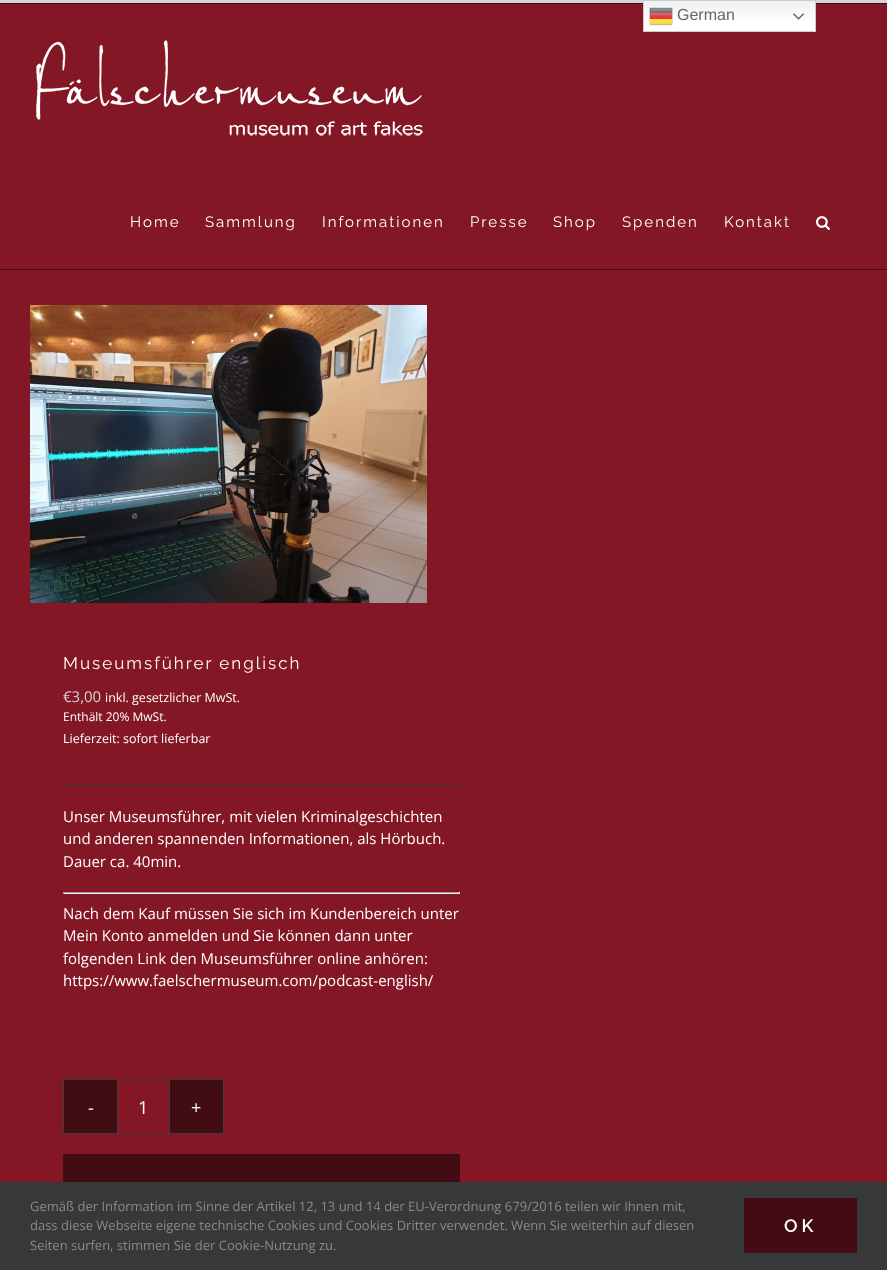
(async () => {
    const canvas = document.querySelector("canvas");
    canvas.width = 887;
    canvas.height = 1270;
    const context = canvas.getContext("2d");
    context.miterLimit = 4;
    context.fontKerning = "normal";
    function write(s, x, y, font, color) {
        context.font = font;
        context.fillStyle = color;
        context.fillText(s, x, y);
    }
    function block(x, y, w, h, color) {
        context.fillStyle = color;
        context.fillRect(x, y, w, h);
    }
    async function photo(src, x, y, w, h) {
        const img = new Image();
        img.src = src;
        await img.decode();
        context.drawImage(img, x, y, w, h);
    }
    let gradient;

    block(0, 0, 887, 1270, "rgb(132, 23, 37)");
    block(0, 3, 887, 1, "rgb(66, 12, 19)");
    block(0, 0, 887, 3, "rgb(213, 213, 213)");
    gradient = context.createLinearGradient(730, 0, 730, 32);
    gradient.addColorStop(0, "rgb(239, 239, 239)");
    gradient.addColorStop(0.7, "rgb(255, 255, 255)");
    context.fillStyle = gradient;
    context.fillRect(644, 1, 171, 30);
    context.strokeStyle = "rgb(204, 204, 204)";
    context.strokeRect(643.5, 0.5, 172, 31);
    await photo("media/1.png", 649, 7, 24, 19);
    write("German", 677, 20, "16px Liberation Sans", "rgb(102, 102, 102)");
    await photo("media/2.png", 793, 13, 11, 7);
    block(0, 1182, 887, 88, "rgb(54, 56, 57)");
    write("Gemäß der Information im Sinne der Artikel 12, 13 und 14 der EU-Verordnung 679/2016 teilen wir Ihnen mit,", 30, 1211, "13px Open Sans", "rgb(140, 137, 137)");
    write("dass diese Webseite eigene technische Cookies und Cookies Dritter verwendet. Wenn Sie weiterhin auf diesen", 30, 1230, "13px Open Sans", "rgb(140, 137, 137)");
    write("Seiten surfen, stimmen Sie der Cookie-Nutzung zu.", 30, 1250, "13px Open Sans", "rgb(140, 137, 137)");
    block(744, 1198, 113, 55, "rgb(66, 12, 18)");
    context.letterSpacing = "4px";
    write("OK", 784, 1232, "600 18px Raleway", "rgb(255, 255, 255)");
    block(0, 269, 887, 1, "rgb(66, 12, 19)");
    await photo("media/3.png", 36, 40, 387, 96);
    context.letterSpacing = "2px";
    write("Home", 130, 227, "15px Raleway", "rgb(255, 255, 255)");
    write("Sammlung", 205, 227, "15px Raleway", "rgb(255, 255, 255)");
    write("Informationen", 322, 227, "15px Raleway", "rgb(255, 255, 255)");
    write("Presse", 470, 227, "15px Raleway", "rgb(255, 255, 255)");
    write("Shop", 553, 227, "15px Raleway", "rgb(255, 255, 255)");
    write("Spenden", 622, 227, "15px Raleway", "rgb(255, 255, 255)");
    write("Kontakt", 724, 227, "15px Raleway", "rgb(255, 255, 255)");
    await photo("media/4.png", 816, 216, 14, 14);
    await photo("media/5.png", 30, 305, 397, 298);
    write("Museumsführer englisch", 63, 669, "17px Raleway", "rgb(255, 255, 255)");
    context.letterSpacing = "0px";
    write("€3,00", 63, 702, "15px Open Sans", "rgb(213, 213, 213)");
    write("inkl. gesetzlicher MwSt.", 105, 702, "12.5px Open Sans", "rgb(255, 255, 255)");
    write("Enthält 20% MwSt.", 63, 721, "12px Open Sans", "rgb(255, 255, 255)");
    write("Lieferzeit: sofort lieferbar", 63, 743, "12.5px Open Sans", "rgb(255, 255, 255)");
    block(63, 784, 397, 1, "rgb(62, 62, 62)");
    write("Unser Museumsführer, mit vielen Kriminalgeschichten", 63, 822, "15px Open Sans", "rgb(255, 255, 255)");
    write("und anderen spannenden Informationen, als Hörbuch.", 63, 844, "15px Open Sans", "rgb(255, 255, 255)");
    write("Dauer ca. 40min.", 63, 867, "15px Open Sans", "rgb(255, 255, 255)");
    block(63, 892, 397, 1, "rgb(159, 159, 159)");
    block(459, 892, 1, 2, "rgb(238, 238, 238)");
    block(63, 893, 397, 1, "rgb(238, 238, 238)");
    block(63, 892, 1, 2, "rgb(159, 159, 159)");
    write("Nach dem Kauf müssen Sie sich im Kundenbereich unter", 63, 919, "15px Open Sans", "rgb(255, 255, 255)");
    write("Mein Konto anmelden und Sie können dann unter", 63, 941, "15px Open Sans", "rgb(255, 255, 255)");
    write("folgenden Link den Museumsführer online anhören:", 63, 964, "15px Open Sans", "rgb(255, 255, 255)");
    write("https://www.faelschermuseum.com/podcast-english/", 63, 986, "15px Open Sans", "rgb(255, 255, 255)");
    context.strokeStyle = "rgb(62, 62, 62)";
    context.strokeRect(63.5, 1079.5, 160, 54);
    block(64, 1080, 53, 53, "rgb(66, 13, 18)");
    write("-", 88, 1114, "18px Open Sans", "rgb(255, 255, 255)");
    block(169, 1080, 1, 53, "rgb(62, 62, 62)");
    block(117, 1080, 1, 53, "rgb(62, 62, 62)");
    write("1", 138, 1114, "18px Open Sans", "rgb(255, 255, 255)");
    block(170, 1080, 53, 53, "rgb(66, 13, 18)");
    write("+", 191, 1114, "18px Open Sans", "rgb(255, 255, 255)");
    block(63, 1154, 397, 28, "rgb(66, 12, 18)");
})();
